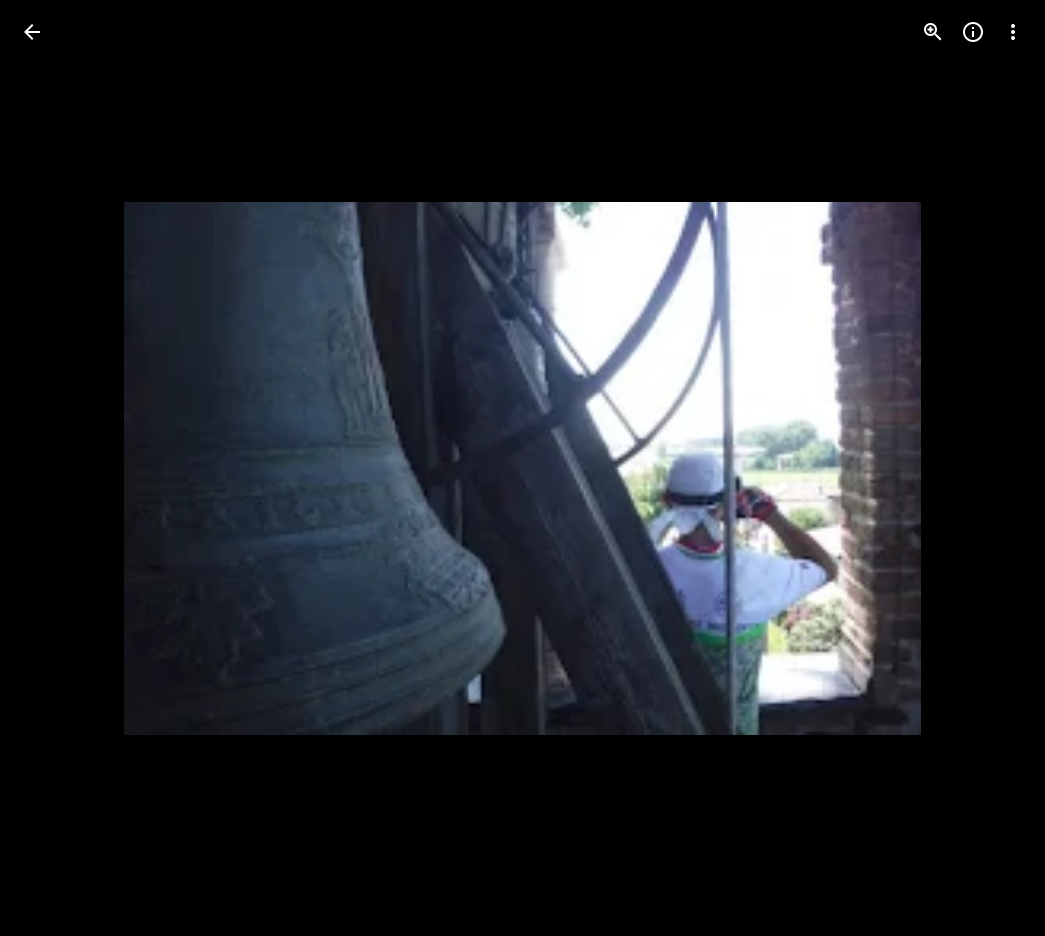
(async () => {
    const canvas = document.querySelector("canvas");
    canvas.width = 1045;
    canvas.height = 936;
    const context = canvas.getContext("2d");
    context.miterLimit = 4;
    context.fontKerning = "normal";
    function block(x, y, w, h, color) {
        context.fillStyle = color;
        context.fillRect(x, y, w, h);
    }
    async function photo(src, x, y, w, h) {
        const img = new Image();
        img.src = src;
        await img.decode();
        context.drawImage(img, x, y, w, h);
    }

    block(0, 0, 1045, 936, "rgb(0, 0, 0)");
    await photo("media/1.png", 24, 24, 16, 16);
    await photo("media/2.png", 924, 23, 18, 18);
    await photo("media/3.png", 963, 22, 20, 20);
    await photo("media/4.png", 1011, 24, 4, 16);
    await photo("media/5.png", 124, 202, 797, 533);
})();
